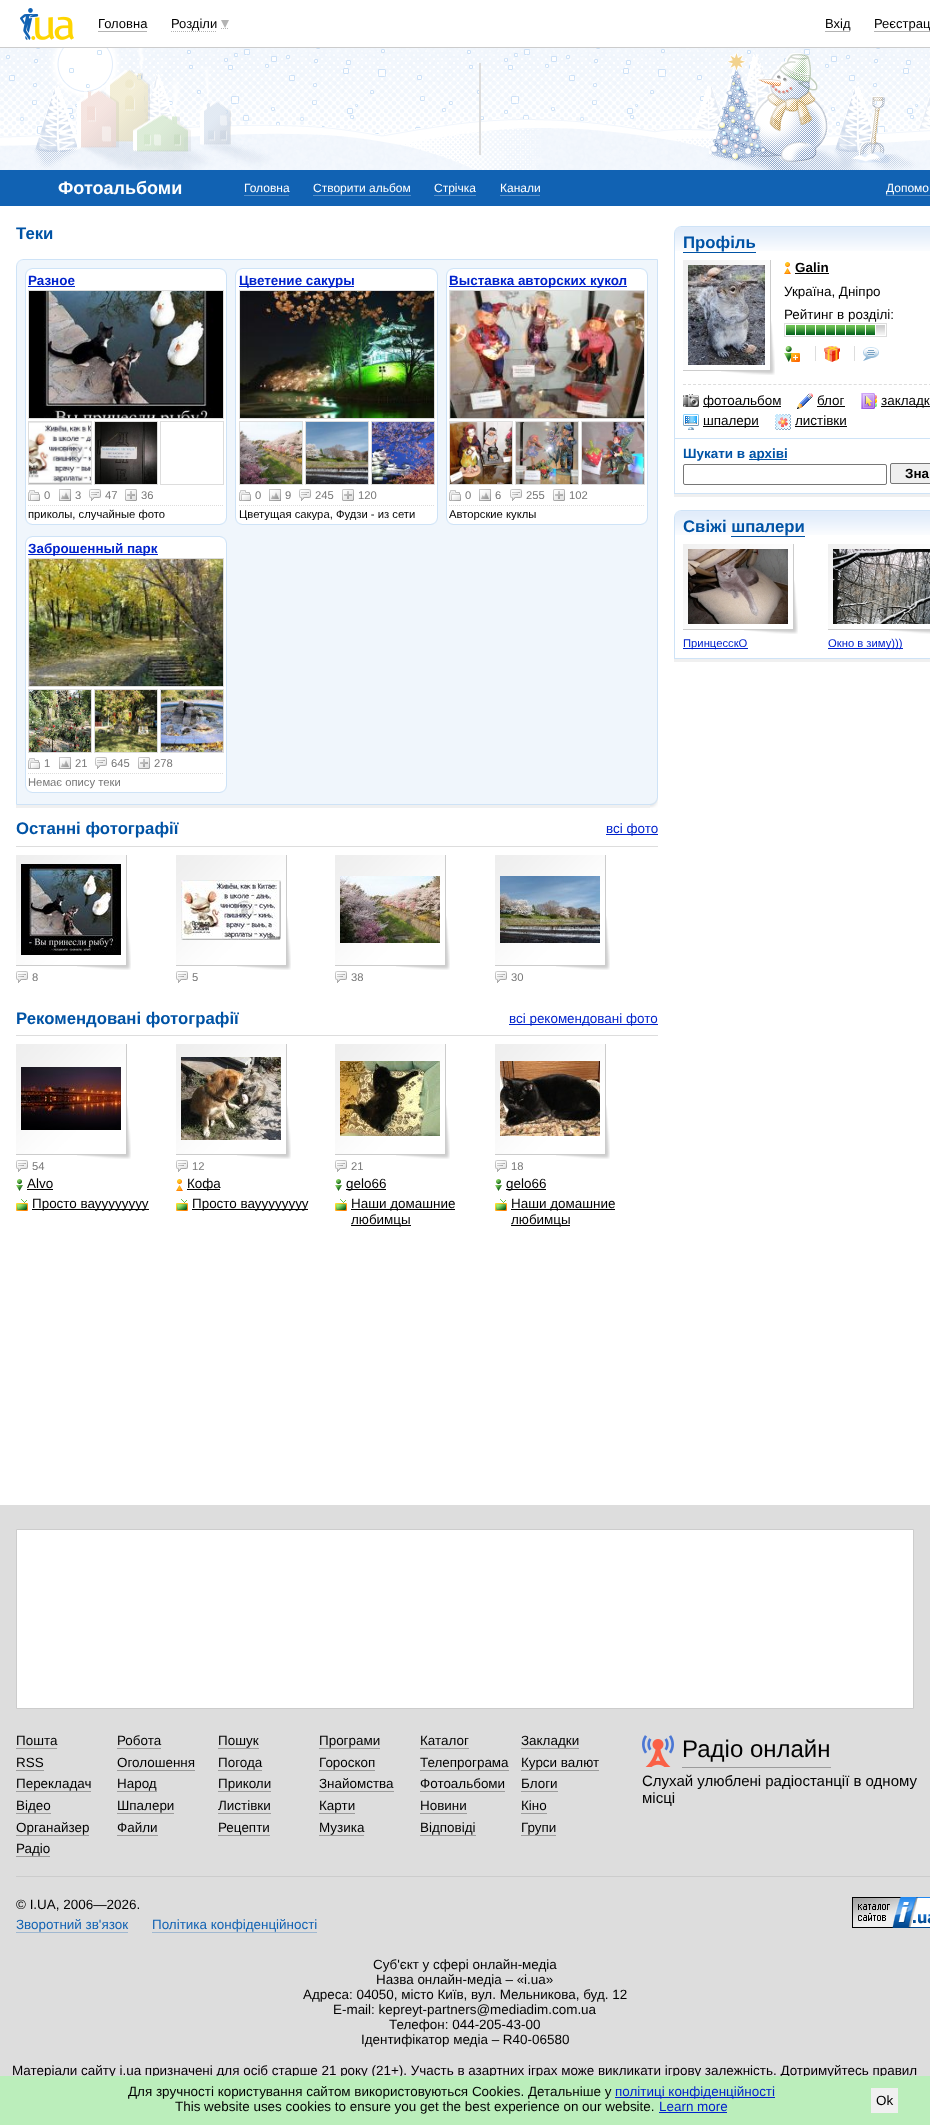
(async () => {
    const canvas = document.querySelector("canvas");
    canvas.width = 930;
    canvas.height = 2125;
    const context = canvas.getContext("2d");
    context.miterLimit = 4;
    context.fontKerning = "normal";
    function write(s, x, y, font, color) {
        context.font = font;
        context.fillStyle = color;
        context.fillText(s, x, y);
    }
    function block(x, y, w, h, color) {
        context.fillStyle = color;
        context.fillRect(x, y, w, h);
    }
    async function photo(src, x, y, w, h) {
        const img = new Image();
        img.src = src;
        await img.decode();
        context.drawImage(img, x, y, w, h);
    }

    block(0, 0, 930, 2125, "rgb(255, 255, 255)");
    block(0, 47, 930, 1, "rgb(204, 204, 204)");
    await photo("media/1.png", 20, 8, 54, 32);
    write("Головна", 98, 28, "13px Liberation Sans", "rgb(0, 0, 0)");
    block(98, 31, 49, 1, "rgb(179, 179, 179)");
    context.beginPath();
    context.moveTo(171, 31.5);
    context.lineTo(217, 31.5);
    context.moveTo(221, 28.5);
    context.lineTo(229, 28.5);
    context.strokeStyle = "rgb(179, 179, 179)";
    context.setLineDash([1, 1]);
    context.stroke();
    write("Розділи", 171, 28, "13px Liberation Sans", "rgb(0, 0, 0)");
    context.fillStyle = "rgb(179, 179, 179)";
    context.beginPath();
    context.moveTo(221, 20);
    context.lineTo(229, 20);
    context.lineTo(225, 28);
    context.closePath();
    context.fill();
    write("Вхід", 825, 28, "13px Liberation Sans", "rgb(0, 0, 0)");
    block(825, 31, 25, 1, "rgb(179, 179, 179)");
    write("Реєстрац", 874, 28, "13px Liberation Sans", "rgb(0, 0, 0)");
    block(874, 31, 56, 1, "rgb(179, 179, 179)");
    await photo("media/2.png", 0, 48, 930, 122);
    block(479, 63, 2, 92, "rgb(221, 221, 221)");
    block(0, 170, 930, 36, "rgb(17, 98, 179)");
    write("Фотоальбоми", 58, 194, "bold 18px Liberation Sans", "rgb(255, 255, 255)");
    write("Головна", 244, 192, "12px Liberation Sans", "rgb(255, 255, 255)");
    block(244, 195, 45, 1, "rgb(88, 145, 202)");
    write("Створити альбом", 313, 192, "12px Liberation Sans", "rgb(255, 255, 255)");
    block(313, 195, 98, 1, "rgb(88, 145, 202)");
    write("Стрічка", 434, 192, "12px Liberation Sans", "rgb(255, 255, 255)");
    block(434, 195, 42, 1, "rgb(88, 145, 202)");
    write("Канали", 500, 192, "12px Liberation Sans", "rgb(255, 255, 255)");
    block(500, 195, 40, 1, "rgb(88, 145, 202)");
    write("Допомо", 886, 192, "12px Liberation Sans", "rgb(255, 255, 255)");
    block(886, 195, 44, 1, "rgb(88, 145, 202)");
    write("Теки", 16, 239, "bold 16.75px Liberation Sans", "rgb(0, 83, 165)");
    block(16, 805, 642, 3, "rgb(240, 240, 240)");
    context.fillStyle = "rgb(240, 246, 252)";
    context.beginPath();
    context.rect(16.5, 259.5, 641, 545);
    context.fill();
    context.strokeStyle = "rgb(206, 227, 247)";
    context.setLineDash([]);
    context.stroke();
    await photo("media/3.png", 16, 259, 7, 7);
    context.fillStyle = "rgb(255, 255, 255)";
    context.beginPath();
    context.rect(25.5, 268.5, 201, 256);
    context.fill();
    context.stroke();
    await photo("media/4.png", 25, 268, 7, 7);
    await photo("media/5.png", 220, 268, 7, 7);
    write("Разное", 28, 285, "bold 13.45px Liberation Sans", "rgb(0, 34, 204)");
    block(28, 286, 47, 1, "rgb(0, 34, 204)");
    context.strokeStyle = "rgb(221, 221, 221)";
    context.strokeRect(28.5, 290.5, 195, 128);
    await photo("media/6.png", 29, 291, 194, 127);
    context.strokeRect(28.5, 421.5, 63, 63);
    await photo("media/7.png", 29, 422, 62, 62);
    context.strokeRect(94.5, 421.5, 63, 63);
    await photo("media/8.png", 95, 422, 62, 62);
    context.strokeRect(160.5, 421.5, 63, 63);
    await photo("media/9.png", 28, 490, 12, 11);
    write("0", 44, 499, "11.25px Liberation Sans", "rgb(119, 119, 119)");
    await photo("media/10.png", 59, 489, 12, 12);
    write("3", 75, 499, "11.25px Liberation Sans", "rgb(119, 119, 119)");
    await photo("media/11.png", 89, 489, 12, 12);
    write("47", 105, 499, "11.25px Liberation Sans", "rgb(119, 119, 119)");
    await photo("media/12.png", 125, 489, 12, 12);
    write("36", 141, 499, "11.25px Liberation Sans", "rgb(119, 119, 119)");
    context.beginPath();
    context.moveTo(28, 505.5);
    context.lineTo(224, 505.5);
    context.setLineDash([1, 1]);
    context.stroke();
    context.save();
    context.beginPath();
    context.rect(28, 506, 196, 14);
    context.clip();
    write("приколы, случайные фото", 28, 518, "11.25px Liberation Sans", "rgb(0, 0, 0)");
    context.restore();
    await photo("media/13.png", 25, 518, 7, 7);
    await photo("media/14.png", 220, 518, 7, 7);
    context.fillStyle = "rgb(255, 255, 255)";
    context.beginPath();
    context.rect(235.5, 268.5, 202, 256);
    context.fill();
    context.strokeStyle = "rgb(206, 227, 247)";
    context.setLineDash([]);
    context.stroke();
    await photo("media/4.png", 235, 268, 7, 7);
    await photo("media/5.png", 431, 268, 7, 7);
    block(239, 286, 115, 1, "rgb(0, 34, 204)");
    write("Цветение сакуры", 239, 285, "bold 13.45px Liberation Sans", "rgb(0, 34, 204)");
    context.strokeStyle = "rgb(221, 221, 221)";
    context.strokeRect(239.5, 290.5, 195, 128);
    await photo("media/15.png", 240, 291, 194, 127);
    context.strokeRect(239.5, 421.5, 63, 63);
    await photo("media/16.png", 240, 422, 62, 62);
    context.strokeRect(305.5, 421.5, 63, 63);
    await photo("media/17.png", 306, 422, 62, 62);
    context.strokeRect(371.5, 421.5, 63, 63);
    await photo("media/18.png", 372, 422, 62, 62);
    await photo("media/9.png", 239, 490, 12, 11);
    write("0", 255, 499, "11.25px Liberation Sans", "rgb(119, 119, 119)");
    await photo("media/10.png", 269, 489, 12, 12);
    write("9", 285, 499, "11.25px Liberation Sans", "rgb(119, 119, 119)");
    await photo("media/11.png", 299, 489, 12, 12);
    write("245", 315, 499, "11.25px Liberation Sans", "rgb(119, 119, 119)");
    await photo("media/12.png", 342, 489, 12, 12);
    write("120", 358, 499, "11.25px Liberation Sans", "rgb(119, 119, 119)");
    context.beginPath();
    context.moveTo(239, 505.5);
    context.lineTo(435, 505.5);
    context.setLineDash([1, 1]);
    context.stroke();
    context.save();
    context.beginPath();
    context.rect(239, 506, 196, 14);
    context.clip();
    write("Цветущая сакура, Фудзи - из сети", 239, 518, "11.25px Liberation Sans", "rgb(0, 0, 0)");
    context.restore();
    await photo("media/13.png", 235, 518, 7, 7);
    await photo("media/14.png", 431, 518, 7, 7);
    context.fillStyle = "rgb(255, 255, 255)";
    context.beginPath();
    context.rect(446.5, 268.5, 201, 256);
    context.fill();
    context.strokeStyle = "rgb(206, 227, 247)";
    context.setLineDash([]);
    context.stroke();
    await photo("media/4.png", 446, 268, 7, 7);
    await photo("media/5.png", 641, 268, 7, 7);
    block(449, 286, 178, 1, "rgb(0, 34, 204)");
    write("Выставка авторских кукол", 449, 285, "bold 13.45px Liberation Sans", "rgb(0, 34, 204)");
    context.strokeStyle = "rgb(221, 221, 221)";
    context.strokeRect(449.5, 290.5, 195, 128);
    await photo("media/19.png", 450, 291, 194, 127);
    context.strokeRect(449.5, 421.5, 63, 63);
    await photo("media/20.png", 450, 422, 62, 62);
    context.strokeRect(515.5, 421.5, 63, 63);
    await photo("media/21.png", 516, 422, 62, 62);
    context.strokeRect(581.5, 421.5, 63, 63);
    await photo("media/22.png", 582, 422, 62, 62);
    await photo("media/9.png", 449, 490, 12, 11);
    write("0", 465, 499, "11.25px Liberation Sans", "rgb(119, 119, 119)");
    await photo("media/10.png", 479, 489, 12, 12);
    write("6", 495, 499, "11.25px Liberation Sans", "rgb(119, 119, 119)");
    await photo("media/11.png", 510, 489, 12, 12);
    write("255", 526, 499, "11.25px Liberation Sans", "rgb(119, 119, 119)");
    await photo("media/12.png", 553, 489, 12, 12);
    write("102", 569, 499, "11.25px Liberation Sans", "rgb(119, 119, 119)");
    context.beginPath();
    context.moveTo(449, 505.5);
    context.lineTo(645, 505.5);
    context.setLineDash([1, 1]);
    context.stroke();
    context.save();
    context.beginPath();
    context.rect(449, 506, 196, 14);
    context.clip();
    write("Авторские куклы", 449, 518, "11.25px Liberation Sans", "rgb(0, 0, 0)");
    context.restore();
    await photo("media/13.png", 446, 518, 7, 7);
    await photo("media/14.png", 641, 518, 7, 7);
    context.fillStyle = "rgb(255, 255, 255)";
    context.beginPath();
    context.rect(25.5, 536.5, 201, 256);
    context.fill();
    context.strokeStyle = "rgb(206, 227, 247)";
    context.setLineDash([]);
    context.stroke();
    await photo("media/4.png", 25, 536, 7, 7);
    await photo("media/5.png", 220, 536, 7, 7);
    block(28, 554, 130, 1, "rgb(0, 34, 204)");
    write("Заброшенный парк", 28, 553, "bold 13.45px Liberation Sans", "rgb(0, 34, 204)");
    context.strokeStyle = "rgb(221, 221, 221)";
    context.strokeRect(28.5, 558.5, 195, 128);
    await photo("media/23.png", 29, 559, 194, 127);
    context.strokeRect(28.5, 689.5, 63, 63);
    await photo("media/24.png", 29, 690, 62, 62);
    context.strokeRect(94.5, 689.5, 63, 63);
    await photo("media/25.png", 95, 690, 62, 62);
    context.strokeRect(160.5, 689.5, 63, 63);
    await photo("media/26.png", 161, 690, 62, 62);
    await photo("media/9.png", 28, 758, 12, 11);
    write("1", 44, 767, "11.25px Liberation Sans", "rgb(119, 119, 119)");
    await photo("media/10.png", 59, 757, 12, 12);
    write("21", 75, 767, "11.25px Liberation Sans", "rgb(119, 119, 119)");
    await photo("media/11.png", 95, 757, 12, 12);
    write("645", 111, 767, "11.25px Liberation Sans", "rgb(119, 119, 119)");
    await photo("media/12.png", 138, 757, 12, 12);
    write("278", 154, 767, "11.25px Liberation Sans", "rgb(119, 119, 119)");
    context.beginPath();
    context.moveTo(28, 773.5);
    context.lineTo(224, 773.5);
    context.setLineDash([1, 1]);
    context.stroke();
    write("Немає опису теки", 28, 786, "11.25px Liberation Sans", "rgb(119, 119, 119)");
    await photo("media/13.png", 25, 786, 7, 7);
    await photo("media/14.png", 220, 786, 7, 7);
    await photo("media/27.png", 650, 798, 8, 10);
    block(16, 846, 642, 1, "rgb(221, 221, 221)");
    write("Останні фотографії", 16, 834, "bold 16.75px Liberation Sans", "rgb(0, 83, 165)");
    block(606, 834, 52, 1, "rgb(0, 34, 204)");
    write("всі фото", 606, 833, "13.45px Liberation Sans", "rgb(0, 34, 204)");
    await photo("media/28.png", 16, 855, 115, 115);
    await photo("media/29.png", 21, 864, 100, 91);
    await photo("media/11.png", 16, 971, 12, 12);
    write("8", 32, 981, "11.25px Liberation Sans", "rgb(119, 119, 119)");
    await photo("media/28.png", 176, 855, 115, 115);
    await photo("media/30.png", 181, 880, 100, 60);
    await photo("media/11.png", 176, 971, 12, 12);
    write("5", 192, 981, "11.25px Liberation Sans", "rgb(119, 119, 119)");
    await photo("media/28.png", 335, 855, 115, 115);
    await photo("media/31.png", 340, 876, 100, 67);
    await photo("media/11.png", 335, 971, 12, 12);
    write("38", 351, 981, "11.25px Liberation Sans", "rgb(119, 119, 119)");
    await photo("media/28.png", 495, 855, 115, 115);
    await photo("media/32.png", 500, 876, 100, 67);
    await photo("media/11.png", 495, 971, 12, 12);
    write("30", 511, 981, "11.25px Liberation Sans", "rgb(119, 119, 119)");
    block(16, 1035, 642, 1, "rgb(221, 221, 221)");
    write("Рекомендовані фотографії", 16, 1024, "bold 16.75px Liberation Sans", "rgb(0, 83, 165)");
    block(509, 1024, 149, 1, "rgb(0, 34, 204)");
    write("всі рекомендовані фото", 509, 1023, "13.45px Liberation Sans", "rgb(0, 34, 204)");
    await photo("media/28.png", 16, 1044, 115, 115);
    await photo("media/33.png", 21, 1067, 100, 63);
    await photo("media/11.png", 16, 1160, 12, 12);
    write("54", 32, 1170, "11.25px Liberation Sans", "rgb(119, 119, 119)");
    await photo("media/34.png", 16, 1179, 7, 12);
    write("Alvo", 27, 1188, "13.45px Liberation Sans", "rgb(0, 0, 0)");
    block(27, 1189, 26, 1, "rgb(0, 0, 0)");
    await photo("media/35.png", 16, 1199, 12, 12);
    block(32, 1209, 117, 1, "rgb(0, 0, 0)");
    write("Просто вауууууууу", 32, 1208, "13.45px Liberation Sans", "rgb(0, 0, 0)");
    await photo("media/28.png", 176, 1044, 115, 115);
    await photo("media/36.png", 181, 1057, 100, 83);
    await photo("media/11.png", 176, 1160, 12, 12);
    write("12", 192, 1170, "11.25px Liberation Sans", "rgb(119, 119, 119)");
    await photo("media/37.png", 176, 1179, 7, 12);
    block(187, 1189, 33, 1, "rgb(0, 0, 0)");
    write("Кофа", 187, 1188, "13.45px Liberation Sans", "rgb(0, 0, 0)");
    await photo("media/35.png", 176, 1199, 12, 12);
    block(192, 1209, 116, 1, "rgb(0, 0, 0)");
    write("Просто вауууууууу", 192, 1208, "13.45px Liberation Sans", "rgb(0, 0, 0)");
    await photo("media/28.png", 335, 1044, 115, 115);
    await photo("media/38.png", 340, 1061, 100, 75);
    await photo("media/11.png", 335, 1160, 12, 12);
    write("21", 351, 1170, "11.25px Liberation Sans", "rgb(119, 119, 119)");
    await photo("media/34.png", 335, 1179, 7, 12);
    block(346, 1189, 40, 1, "rgb(0, 0, 0)");
    write("gelo66", 346, 1188, "13.45px Liberation Sans", "rgb(0, 0, 0)");
    await photo("media/35.png", 335, 1199, 12, 12);
    block(351, 1209, 104, 1, "rgb(0, 0, 0)");
    write("Наши домашние", 351, 1208, "13.45px Liberation Sans", "rgb(0, 0, 0)");
    block(351, 1225, 60, 1, "rgb(0, 0, 0)");
    write("любимцы", 351, 1224, "13.45px Liberation Sans", "rgb(0, 0, 0)");
    await photo("media/28.png", 495, 1044, 115, 115);
    await photo("media/39.png", 500, 1061, 100, 75);
    await photo("media/11.png", 495, 1160, 12, 12);
    write("18", 511, 1170, "11.25px Liberation Sans", "rgb(119, 119, 119)");
    await photo("media/34.png", 495, 1179, 7, 12);
    block(506, 1189, 40, 1, "rgb(0, 0, 0)");
    write("gelo66", 506, 1188, "13.45px Liberation Sans", "rgb(0, 0, 0)");
    await photo("media/35.png", 495, 1199, 12, 12);
    block(511, 1209, 104, 1, "rgb(0, 0, 0)");
    write("Наши домашние", 511, 1208, "13.45px Liberation Sans", "rgb(0, 0, 0)");
    block(511, 1225, 59, 1, "rgb(0, 0, 0)");
    write("любимцы", 511, 1224, "13.45px Liberation Sans", "rgb(0, 0, 0)");
    block(674, 494, 256, 3, "rgb(240, 240, 240)");
    await photo("media/41.png", 675, 227, 255, 24);
    context.strokeStyle = "rgb(206, 227, 247)";
    context.setLineDash([]);
    context.strokeRect(674.5, 226.5, 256, 267);
    await photo("media/40.png", 674, 226, 7, 7);
    write("Профіль", 683, 248, "bold 16.75px Liberation Sans", "rgb(0, 83, 165)");
    block(683, 252, 73, 1, "rgb(0, 83, 165)");
    await photo("media/42.png", 683, 260, 92, 115);
    await photo("media/43.png", 688, 265, 77, 100);
    await photo("media/37.png", 784, 262, 7, 12);
    write("Galin", 795, 272, "bold 13.45px Liberation Sans", "rgb(0, 0, 0)");
    block(795, 273, 34, 1, "rgb(0, 0, 0)");
    write("Україна, Дніпро", 784, 296, "13.45px Liberation Sans", "rgb(0, 0, 0)");
    write("Рейтинг в розділі:", 784, 319, "13.45px Liberation Sans", "rgb(0, 0, 0)");
    await photo("media/44.png", 876, 325, 9, 10);
    context.strokeStyle = "rgb(221, 221, 221)";
    context.strokeRect(784.5, 323.5, 102, 13);
    await photo("media/45.png", 786, 325, 89, 10);
    await photo("media/46.png", 784, 346, 16, 16);
    block(815, 346, 1, 15, "rgb(221, 221, 221)");
    await photo("media/47.png", 824, 346, 16, 16);
    block(854, 346, 1, 15, "rgb(221, 221, 221)");
    await photo("media/48.png", 863, 347, 16, 14);
    context.beginPath();
    context.moveTo(683, 384.5);
    context.lineTo(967, 384.5);
    context.setLineDash([3, 2.02]);
    context.stroke();
    await photo("media/49.png", 683, 394, 16, 13);
    block(703, 406, 78, 1, "rgb(0, 0, 0)");
    write("фотоальбом", 703, 405, "13.45px Liberation Sans", "rgb(0, 0, 0)");
    await photo("media/50.png", 797, 393, 16, 16);
    write("блог", 817, 405, "13.45px Liberation Sans", "rgb(0, 0, 0)");
    block(817, 406, 28, 1, "rgb(0, 0, 0)");
    await photo("media/51.png", 861, 393, 16, 16);
    block(881, 406, 49, 1, "rgb(0, 0, 0)");
    write("закладк", 881, 405, "13.45px Liberation Sans", "rgb(0, 0, 0)");
    await photo("media/52.png", 683, 414, 16, 16);
    block(703, 426, 56, 1, "rgb(0, 0, 0)");
    write("шпалери", 703, 425, "13.45px Liberation Sans", "rgb(0, 0, 0)");
    await photo("media/53.png", 775, 414, 16, 16);
    write("листівки", 795, 425, "13.45px Liberation Sans", "rgb(0, 0, 0)");
    block(795, 426, 52, 1, "rgb(0, 0, 0)");
    block(675, 438, 255, 1, "rgb(206, 227, 247)");
    write("Шукати в", 683, 458, "bold 13.45px Liberation Sans", "rgb(0, 83, 165)");
    block(749, 459, 38, 1, "rgb(0, 83, 165)");
    write("архіві", 749, 458, "bold 13.45px Liberation Sans", "rgb(0, 83, 165)");
    context.beginPath();
    context.roundRect(683.5, 464.5, 203, 20, 1.5);
    context.strokeStyle = "rgb(118, 118, 118)";
    context.setLineDash([]);
    context.stroke();
    context.fillStyle = "rgb(239, 239, 239)";
    context.beginPath();
    context.roundRect(890.5, 463.5, 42, 20, 1.5);
    context.fill();
    context.stroke();
    write("Зна", 905, 478, "bold 13.45px Liberation Sans", "rgb(0, 0, 0)");
    block(674, 659, 256, 3, "rgb(240, 240, 240)");
    await photo("media/41.png", 675, 511, 255, 24);
    context.strokeStyle = "rgb(206, 227, 247)";
    context.strokeRect(674.5, 510.5, 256, 148);
    await photo("media/40.png", 674, 510, 7, 7);
    write("Свіжі шпалери", 683, 532, "bold 16.75px Liberation Sans", "rgb(0, 83, 165)");
    block(731, 536, 74, 1, "rgb(0, 83, 165)");
    await photo("media/54.png", 683, 544, 115, 90);
    await photo("media/55.png", 688, 549, 100, 75);
    block(683, 648, 65, 1, "rgb(0, 34, 204)");
    write("ПринцесскО", 683, 647, "11.25px Liberation Sans", "rgb(0, 34, 204)");
    await photo("media/56.png", 828, 544, 102, 90);
    await photo("media/57.png", 833, 549, 97, 75);
    block(828, 648, 75, 1, "rgb(0, 34, 204)");
    write("Окно в зиму)))", 828, 647, "11.25px Liberation Sans", "rgb(0, 34, 204)");
    block(0, 1505, 930, 571, "rgb(221, 221, 221)");
    context.fillStyle = "rgb(255, 255, 255)";
    context.beginPath();
    context.rect(16.5, 1529.5, 897, 179);
    context.fill();
    context.strokeStyle = "rgb(204, 204, 204)";
    context.stroke();
    write("Пошта", 16, 1745, "13.45px Liberation Sans", "rgb(0, 0, 0)");
    block(16, 1748, 41, 1, "rgb(155, 155, 155)");
    write("Робота", 117, 1745, "13.45px Liberation Sans", "rgb(0, 0, 0)");
    block(117, 1748, 44, 1, "rgb(155, 155, 155)");
    write("Пошук", 218, 1745, "13.45px Liberation Sans", "rgb(0, 0, 0)");
    block(218, 1748, 41, 1, "rgb(155, 155, 155)");
    write("Програми", 319, 1745, "13.45px Liberation Sans", "rgb(0, 0, 0)");
    block(319, 1748, 61, 1, "rgb(155, 155, 155)");
    write("Каталог", 420, 1745, "13.45px Liberation Sans", "rgb(0, 0, 0)");
    block(420, 1748, 49, 1, "rgb(155, 155, 155)");
    write("Закладки", 521, 1745, "13.45px Liberation Sans", "rgb(0, 0, 0)");
    block(521, 1748, 58, 1, "rgb(155, 155, 155)");
    write("RSS", 16, 1767, "13.45px Liberation Sans", "rgb(0, 0, 0)");
    block(16, 1770, 28, 1, "rgb(155, 155, 155)");
    write("Оголошення", 117, 1767, "13.45px Liberation Sans", "rgb(0, 0, 0)");
    block(117, 1770, 78, 1, "rgb(155, 155, 155)");
    write("Погода", 218, 1767, "13.45px Liberation Sans", "rgb(0, 0, 0)");
    block(218, 1770, 44, 1, "rgb(155, 155, 155)");
    write("Гороскоп", 319, 1767, "13.45px Liberation Sans", "rgb(0, 0, 0)");
    block(319, 1770, 56, 1, "rgb(155, 155, 155)");
    write("Телепрограма", 420, 1767, "13.45px Liberation Sans", "rgb(0, 0, 0)");
    block(420, 1770, 89, 1, "rgb(155, 155, 155)");
    write("Курси валют", 521, 1767, "13.45px Liberation Sans", "rgb(0, 0, 0)");
    block(521, 1770, 78, 1, "rgb(155, 155, 155)");
    write("Перекладач", 16, 1788, "13.45px Liberation Sans", "rgb(0, 0, 0)");
    block(16, 1791, 75, 1, "rgb(155, 155, 155)");
    write("Народ", 117, 1788, "13.45px Liberation Sans", "rgb(0, 0, 0)");
    block(117, 1791, 40, 1, "rgb(155, 155, 155)");
    write("Приколи", 218, 1788, "13.45px Liberation Sans", "rgb(0, 0, 0)");
    block(218, 1791, 53, 1, "rgb(155, 155, 155)");
    write("Знайомства", 319, 1788, "13.45px Liberation Sans", "rgb(0, 0, 0)");
    block(319, 1791, 75, 1, "rgb(155, 155, 155)");
    write("Фотоальбоми", 420, 1788, "13.45px Liberation Sans", "rgb(0, 0, 0)");
    block(420, 1791, 85, 1, "rgb(155, 155, 155)");
    write("Блоги", 521, 1788, "13.45px Liberation Sans", "rgb(0, 0, 0)");
    block(521, 1791, 37, 1, "rgb(155, 155, 155)");
    write("Відео", 16, 1810, "13.45px Liberation Sans", "rgb(0, 0, 0)");
    block(16, 1813, 35, 1, "rgb(155, 155, 155)");
    write("Шпалери", 117, 1810, "13.45px Liberation Sans", "rgb(0, 0, 0)");
    block(117, 1813, 57, 1, "rgb(155, 155, 155)");
    write("Листівки", 218, 1810, "13.45px Liberation Sans", "rgb(0, 0, 0)");
    block(218, 1813, 53, 1, "rgb(155, 155, 155)");
    write("Карти", 319, 1810, "13.45px Liberation Sans", "rgb(0, 0, 0)");
    block(319, 1813, 36, 1, "rgb(155, 155, 155)");
    write("Новини", 420, 1810, "13.45px Liberation Sans", "rgb(0, 0, 0)");
    block(420, 1813, 47, 1, "rgb(155, 155, 155)");
    write("Кіно", 521, 1810, "13.45px Liberation Sans", "rgb(0, 0, 0)");
    block(521, 1813, 26, 1, "rgb(155, 155, 155)");
    write("Органайзер", 16, 1832, "13.45px Liberation Sans", "rgb(0, 0, 0)");
    block(16, 1835, 73, 1, "rgb(155, 155, 155)");
    write("Файли", 117, 1832, "13.45px Liberation Sans", "rgb(0, 0, 0)");
    block(117, 1835, 41, 1, "rgb(155, 155, 155)");
    write("Рецепти", 218, 1832, "13.45px Liberation Sans", "rgb(0, 0, 0)");
    block(218, 1835, 52, 1, "rgb(155, 155, 155)");
    write("Музика", 319, 1832, "13.45px Liberation Sans", "rgb(0, 0, 0)");
    block(319, 1835, 45, 1, "rgb(155, 155, 155)");
    write("Відповіді", 420, 1832, "13.45px Liberation Sans", "rgb(0, 0, 0)");
    block(420, 1835, 56, 1, "rgb(155, 155, 155)");
    write("Групи", 521, 1832, "13.45px Liberation Sans", "rgb(0, 0, 0)");
    block(521, 1835, 35, 1, "rgb(155, 155, 155)");
    write("Радіо", 16, 1853, "13.45px Liberation Sans", "rgb(0, 0, 0)");
    block(16, 1856, 34, 1, "rgb(155, 155, 155)");
    block(682, 1767, 149, 1, "rgb(155, 155, 155)");
    await photo("media/58.png", 642, 1735, 32, 32);
    write("Радіо онлайн", 682, 1757, "24px Liberation Sans", "rgb(0, 0, 0)");
    write("Слухай улюблені радіостанції в одному", 642, 1786, "15px Liberation Sans", "rgb(0, 0, 0)");
    write("місці", 642, 1803, "15px Liberation Sans", "rgb(0, 0, 0)");
    block(16, 1876, 914, 1, "rgb(204, 204, 204)");
    write("© I.UA, 2006—2026.", 16, 1909, "13.45px Liberation Sans", "rgb(0, 0, 0)");
    await photo("media/59.png", 852, 1897, 78, 31);
    write("Зворотний зв'язок", 16, 1929, "13.45px Liberation Sans", "rgb(17, 98, 179)");
    block(16, 1932, 112, 1, "rgb(160, 184, 208)");
    write("Політика конфіденційності", 152, 1929, "13.45px Liberation Sans", "rgb(17, 98, 179)");
    block(152, 1932, 165, 1, "rgb(160, 184, 208)");
    write("Суб'єкт у сфері онлайн-медіа", 373, 1969, "13.45px Liberation Sans", "rgb(0, 0, 0)");
    write("Назва онлайн-медіа – «i.ua»", 376, 1984, "13.45px Liberation Sans", "rgb(0, 0, 0)");
    write("Адреса: 04050, місто Київ, вул. Мельникова, буд. 12", 303, 1999, "13.45px Liberation Sans", "rgb(0, 0, 0)");
    write("E-mail: kepreyt-partners@mediadim.com.ua", 333, 2014, "13.45px Liberation Sans", "rgb(0, 0, 0)");
    write("Телефон: 044-205-43-00", 389, 2029, "13.45px Liberation Sans", "rgb(0, 0, 0)");
    write("Ідентифікатор медіа – R40-06580", 361, 2044, "13.45px Liberation Sans", "rgb(0, 0, 0)");
    write("Матеріали сайту i.ua призначені для осіб старше 21 року (21+). Участь в азартних іграх може викликати ігрову залежність. Дотримуйтесь правил", 12, 2075, "13.45px Liberation Sans", "rgb(0, 0, 0)");
    block(0, 2076, 930, 49, "rgb(187, 238, 187)");
    write("Для зручності користування сайтом використовуються Cookies. Детальніше у", 128, 2096, "13.45px Liberation Sans", "rgb(0, 0, 0)");
    block(615, 2097, 160, 1, "rgb(0, 34, 204)");
    write("політиці конфіденційності", 615, 2096, "13.45px Liberation Sans", "rgb(0, 34, 204)");
    write("This website uses cookies to ensure you get the best experience on our website.", 175, 2111, "13.45px Liberation Sans", "rgb(0, 0, 0)");
    write("Learn more", 659, 2111, "13.45px Liberation Sans", "rgb(0, 34, 204)");
    block(659, 2112, 68, 1, "rgb(0, 34, 204)");
    block(871, 2088, 27, 25, "rgb(240, 240, 240)");
    write("Ok", 876, 2105, "13.45px Liberation Sans", "rgb(0, 0, 0)");
})();
